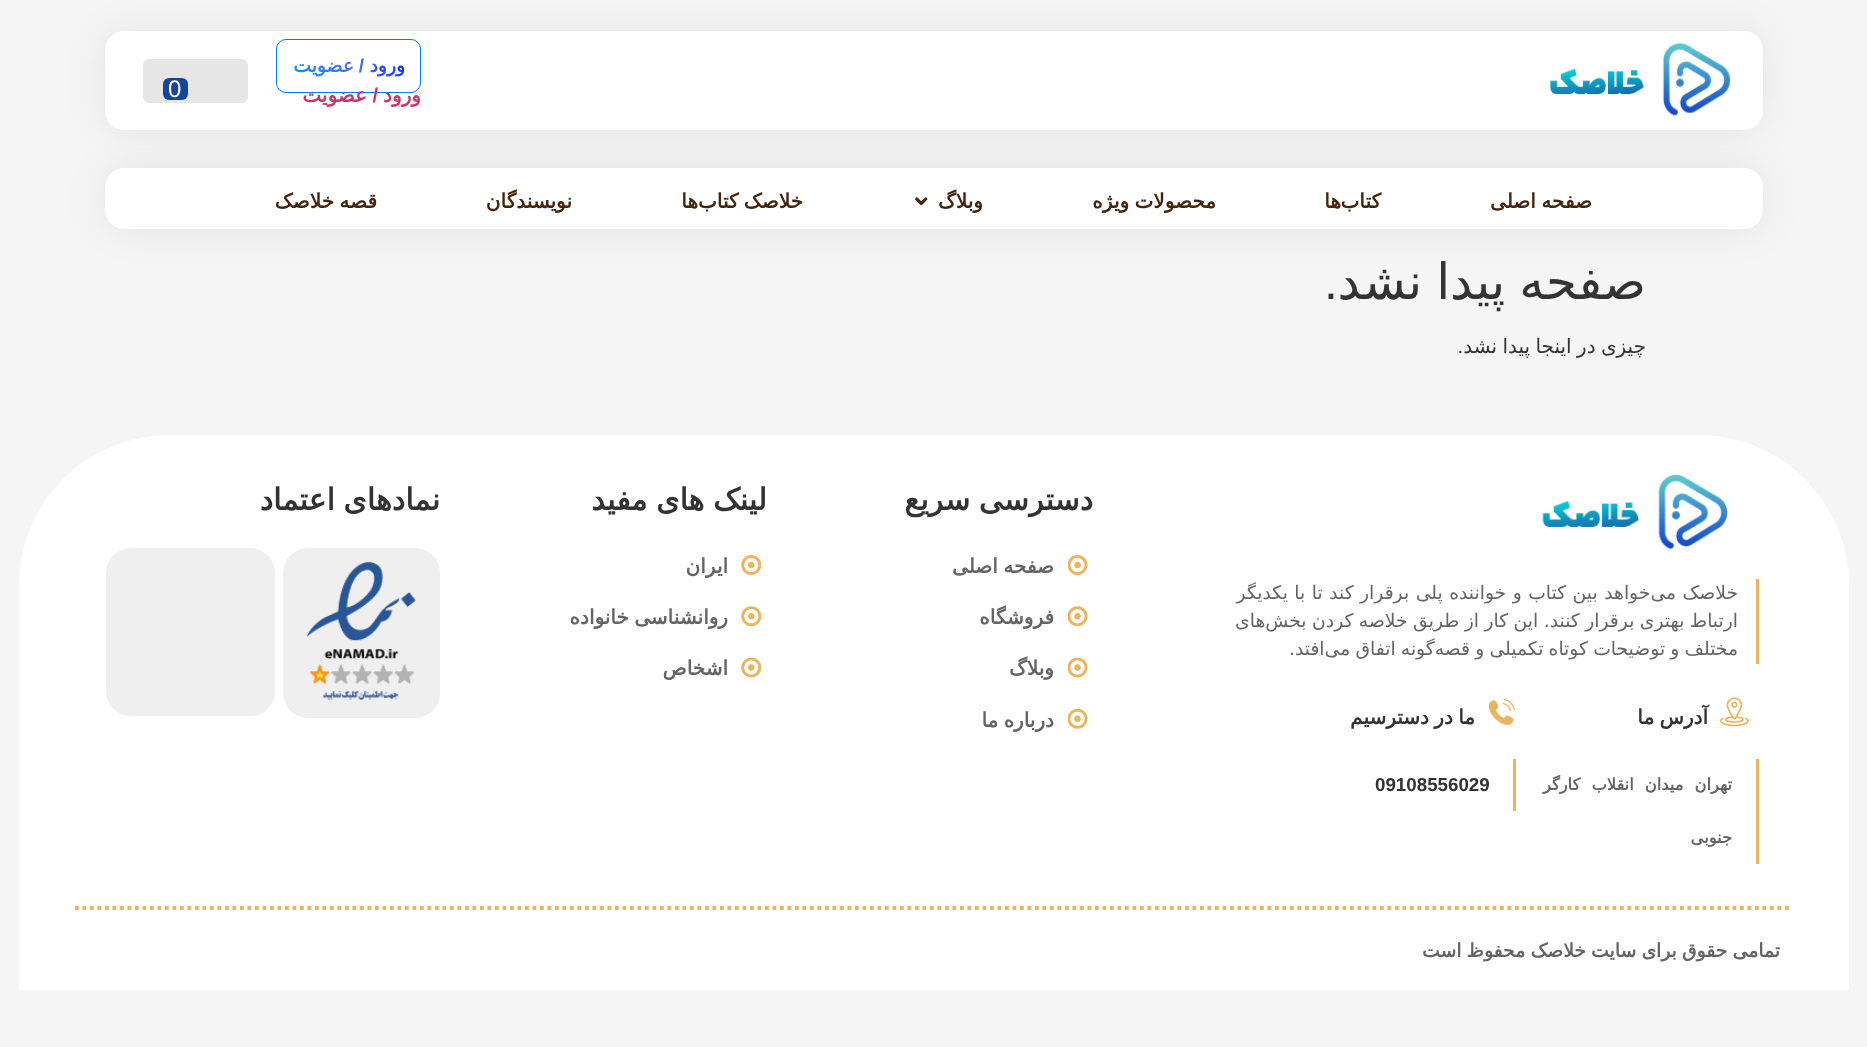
(async () => {
    const canvas = document.querySelector("canvas");
    canvas.width = 1867;
    canvas.height = 1047;
    const context = canvas.getContext("2d");
    context.miterLimit = 4;
    context.fontKerning = "normal";
    function write(s, x, y, font, color) {
        context.font = font;
        context.fillStyle = color;
        context.fillText(s, x, y);
    }
    function block(x, y, w, h, color) {
        context.fillStyle = color;
        context.fillRect(x, y, w, h);
    }
    function card(x, y, w, h, r, color) {
        context.fillStyle = color;
        context.beginPath();
        context.roundRect(x, y, w, h, r);
        context.fill();
    }
    async function photo(src, x, y, w, h) {
        const img = new Image();
        img.src = src;
        await img.decode();
        context.drawImage(img, x, y, w, h);
    }
    let gradient;

    block(0, 0, 1867, 1047, "rgb(245, 245, 245)");
    context.fillStyle = "rgba(0, 0, 0, 0.07)";
    context.filter = "blur(19.5px)";
    context.beginPath();
    context.roundRect(105, 31, 1658, 99, 19);
    context.fill();
    context.filter = "none";
    card(105, 31, 1658, 99, 19, "rgb(255, 255, 255)");
    await photo("media/1.png", 1550, 42, 181, 74);
    context.beginPath();
    context.roundRect(276.5, 39.5, 144, 53, 9.5);
    context.strokeStyle = "rgb(0, 117, 255)";
    context.stroke();
    context.direction = "rtl";
    context.font = "bold 18.75px DejaVu Sans";
    gradient = context.createLinearGradient(277, 65, 421, 65);
    gradient.addColorStop(0, "rgb(0, 155, 222)");
    gradient.addColorStop(0.5, "rgb(71, 111, 255)");
    gradient.addColorStop(1, "rgb(0, 34, 255)");
    context.fillStyle = gradient;
    context.fillText("ورود", 405, 72);
    context.font = "bold 18.75px Liberation Sans";
    context.fillText("/", 364, 72);
    context.font = "bold 18.75px DejaVu Sans";
    context.fillText("عضویت", 354, 72);
    write("ورود", 421, 102, "bold 20px DejaVu Sans", "rgb(204, 51, 102)");
    write("/", 378, 102, "bold 20px Liberation Sans", "rgb(204, 51, 102)");
    write("عضویت", 367, 102, "bold 20px DejaVu Sans", "rgb(204, 51, 102)");
    context.fillStyle = "rgb(230, 230, 230)";
    context.beginPath();
    context.roundRect(141.5, 57.5, 108, 47, 7.5);
    context.fill();
    context.strokeStyle = "rgb(255, 255, 255)";
    context.lineWidth = 3;
    context.stroke();
    card(163, 78, 25, 22, 6, "rgb(24, 68, 156)");
    context.direction = "ltr";
    write("0", 168, 97, "24px Liberation Sans", "rgb(255, 255, 255)");
    context.fillStyle = "rgba(0, 0, 0, 0.07)";
    context.filter = "blur(19.5px)";
    context.beginPath();
    context.roundRect(105, 168, 1658, 61, 19);
    context.fill();
    context.filter = "none";
    card(105, 168, 1658, 61, 19, "rgb(255, 255, 255)");
    context.wordSpacing = "-1px";
    context.direction = "rtl";
    write("صفحه اصلی", 1592, 208, "bold 20px DejaVu Sans", "rgb(68, 36, 12)");
    context.wordSpacing = "0px";
    write("کتاب", 1381, 208, "bold 20px DejaVu Sans", "rgb(68, 36, 12)");
    write("ها", 1341, 208, "bold 20px DejaVu Sans", "rgb(68, 36, 12)");
    context.wordSpacing = "-1px";
    write("محصولات ویژه", 1216, 208, "bold 20px DejaVu Sans", "rgb(68, 36, 12)");
    context.wordSpacing = "0px";
    write("وبلاگ", 983, 208, "bold 20px DejaVu Sans", "rgb(68, 36, 12)");
    await photo("media/2.png", 915, 197, 13, 9);
    context.wordSpacing = "-1px";
    write("خلاصک کتاب", 803, 208, "bold 20px DejaVu Sans", "rgb(68, 36, 12)");
    context.wordSpacing = "0px";
    write("ها", 698, 208, "bold 20px DejaVu Sans", "rgb(68, 36, 12)");
    write("نویسندگان", 572, 208, "bold 20px DejaVu Sans", "rgb(68, 36, 12)");
    context.wordSpacing = "-1px";
    write("قصه خلاصک", 377, 208, "bold 20px DejaVu Sans", "rgb(68, 36, 12)");
    context.wordSpacing = "-2px";
    write("صفحه پیدا نشد", 1646, 299, "50px DejaVu Sans", "rgb(51, 51, 51)");
    context.wordSpacing = "0px";
    write(".", 1338, 299, "50px Liberation Sans", "rgb(51, 51, 51)");
    context.wordSpacing = "-1px";
    write("چیزی در اینجا پیدا نشد", 1646, 353, "20px DejaVu Sans", "rgb(51, 51, 51)");
    context.wordSpacing = "0px";
    write(".", 1463, 353, "20px Liberation Sans", "rgb(51, 51, 51)");
    context.fillStyle = "rgb(255, 255, 255)";
    context.beginPath();
    context.roundRect(19, 435, 1830, 555, [150, 150, 0, 0]);
    context.fill();
    await photo("media/3.png", 1542, 474, 186, 76);
    block(1756, 579, 3, 85, "rgb(235, 180, 95)");
    context.wordSpacing = "0.5px";
    write("خلاصک می‌خواهد بین کتاب و خواننده پلی برقرار کند تا با یکدیگر", 1738, 599, "18.75px DejaVu Sans", "rgb(100, 100, 100)");
    context.wordSpacing = "-0.5px";
    write("ارتباط بهتری برقرار کنند. این کار از طریق خلاصه کردن بخش‌های", 1738, 627, "18.75px DejaVu Sans", "rgb(100, 100, 100)");
    context.wordSpacing = "-0.75px";
    write("مختلف و توضیحات کوتاه تکمیلی و قصه‌گونه اتفاق می‌افتد.", 1738, 655, "18.75px DejaVu Sans", "rgb(100, 100, 100)");
    await photo("media/4.png", 1720, 697, 29, 30);
    context.wordSpacing = "-1px";
    write("آدرس ما", 1708, 724, "bold 20px DejaVu Sans", "rgb(51, 51, 51)");
    await photo("media/5.png", 1488, 698, 27, 27);
    write("ما در دسترسیم", 1475, 724, "bold 20px DejaVu Sans", "rgb(51, 51, 51)");
    block(1756, 759, 3, 105, "rgb(235, 180, 95)");
    context.wordSpacing = "6px";
    write("تهران میدان انقلاب کارگر", 1732, 790, "bold 16.25px DejaVu Sans", "rgb(100, 100, 100)");
    context.wordSpacing = "0px";
    write("جنوبی", 1732, 843, "bold 16.25px DejaVu Sans", "rgb(100, 100, 100)");
    block(1513, 759, 3, 52, "rgb(235, 180, 95)");
    context.direction = "ltr";
    write("09108556029", 1375, 791, "bold 18.75px Liberation Sans", "rgb(51, 51, 51)");
    context.wordSpacing = "-1px";
    context.direction = "rtl";
    write("دسترسی سریع", 1093, 510, "bold 30px DejaVu Sans", "rgb(51, 51, 51)");
    await photo("media/6.png", 1068, 555, 20, 20);
    write("صفحه اصلی", 1054, 573, "bold 20px DejaVu Sans", "rgb(100, 100, 100)");
    await photo("media/7.png", 1068, 606, 20, 20);
    context.wordSpacing = "0px";
    write("فروشگاه", 1054, 624, "bold 20px DejaVu Sans", "rgb(100, 100, 100)");
    await photo("media/8.png", 1068, 658, 20, 20);
    write("وبلاگ", 1054, 675, "bold 20px DejaVu Sans", "rgb(100, 100, 100)");
    await photo("media/9.png", 1068, 709, 20, 20);
    context.wordSpacing = "-1px";
    write("درباره ما", 1054, 727, "bold 20px DejaVu Sans", "rgb(100, 100, 100)");
    write("لینک های مفید", 767, 510, "bold 30px DejaVu Sans", "rgb(51, 51, 51)");
    await photo("media/10.png", 741, 555, 20, 20);
    context.wordSpacing = "0px";
    write("ایران", 728, 573, "bold 20px DejaVu Sans", "rgb(100, 100, 100)");
    await photo("media/11.png", 741, 606, 20, 20);
    context.wordSpacing = "-1px";
    write("روانشناسی خانواده", 728, 624, "bold 20px DejaVu Sans", "rgb(100, 100, 100)");
    await photo("media/12.png", 741, 658, 20, 20);
    context.wordSpacing = "0px";
    write("اشخاص", 728, 675, "bold 20px DejaVu Sans", "rgb(100, 100, 100)");
    context.wordSpacing = "-1px";
    write("نمادهای اعتماد", 440, 510, "bold 30px DejaVu Sans", "rgb(51, 51, 51)");
    card(283, 548, 157, 170, 25, "rgb(239, 239, 239)");
    await photo("media/13.png", 306, 561, 110, 139);
    card(106, 548, 169, 168, 25, "rgb(239, 239, 239)");
    context.beginPath();
    context.moveTo(75, 908);
    context.lineTo(1792.5, 908);
    context.strokeStyle = "rgb(235, 180, 95)";
    context.lineWidth = 3.8;
    context.setLineDash([3.75, 3.75]);
    context.stroke();
    context.wordSpacing = "-0.75px";
    write("تمامی حقوق برای سایت خلاصک محفوظ است", 1780, 957, "bold 18.75px DejaVu Sans", "rgb(100, 100, 100)");
})();
